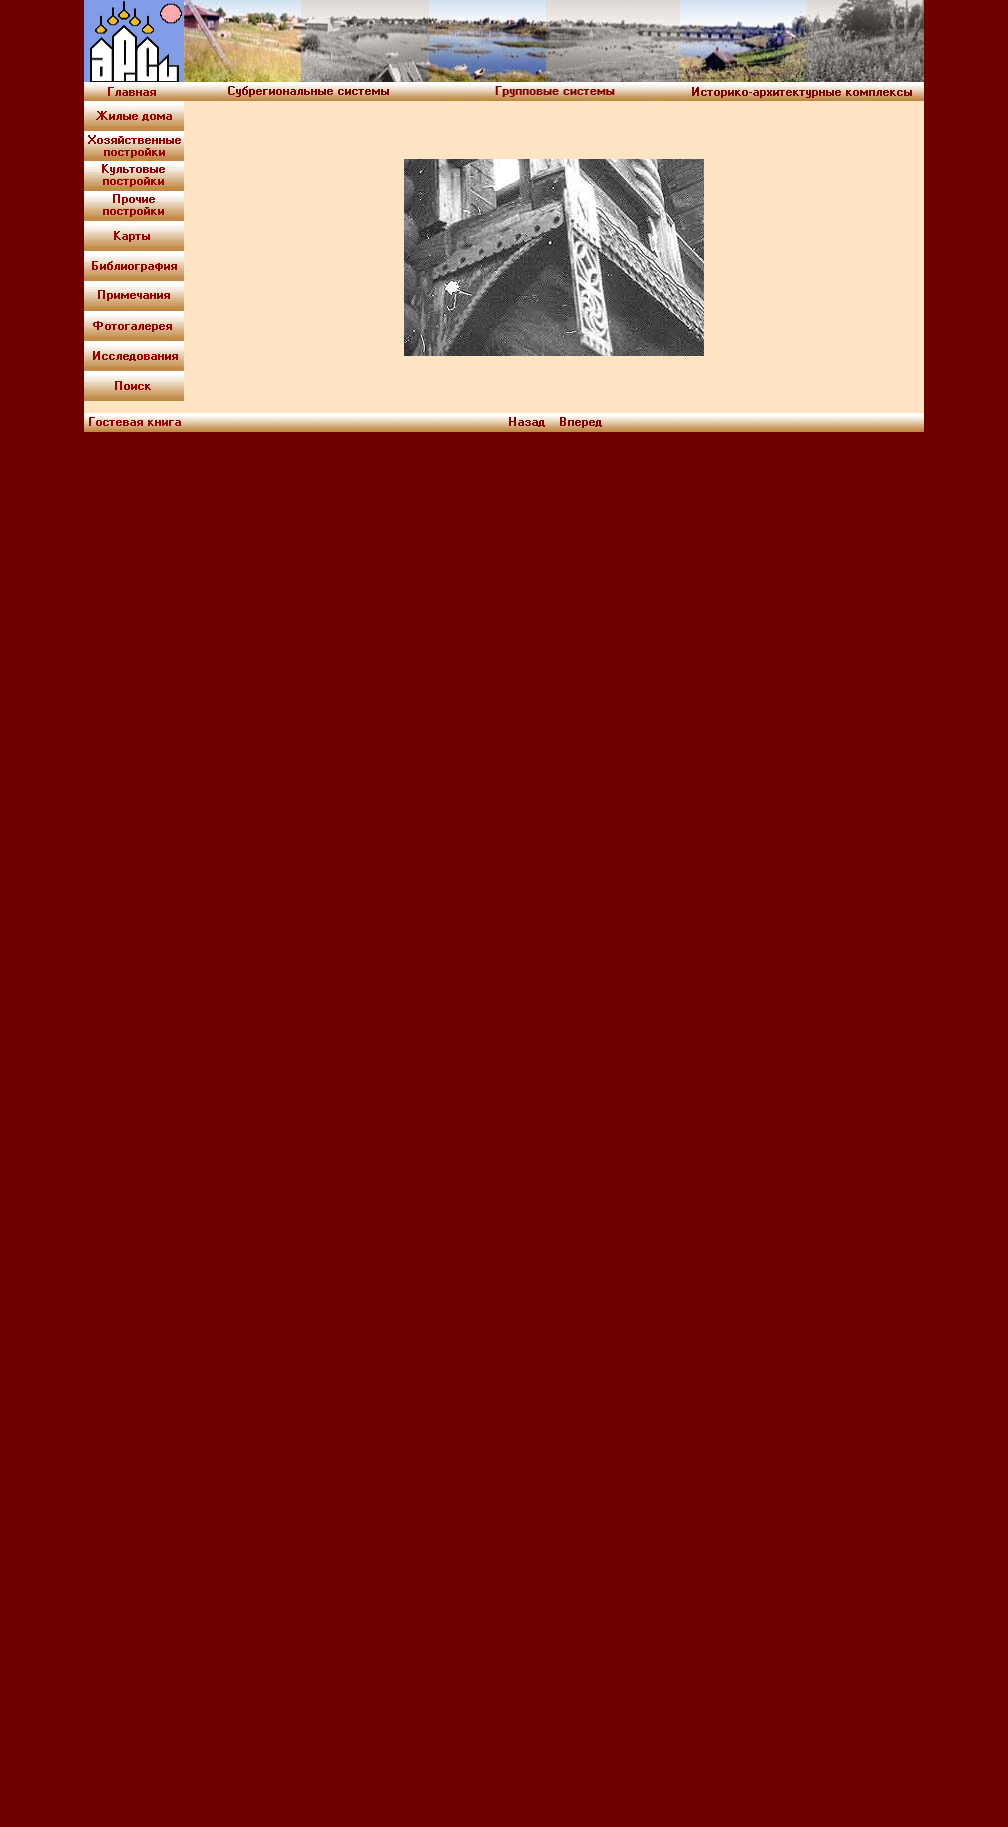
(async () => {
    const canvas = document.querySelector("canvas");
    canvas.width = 1008;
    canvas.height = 1827;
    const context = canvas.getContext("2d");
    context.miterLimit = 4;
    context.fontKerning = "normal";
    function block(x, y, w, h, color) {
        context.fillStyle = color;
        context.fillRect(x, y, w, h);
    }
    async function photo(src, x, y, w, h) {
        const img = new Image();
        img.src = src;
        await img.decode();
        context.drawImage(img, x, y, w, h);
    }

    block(0, 0, 1008, 1827, "rgb(112, 0, 0)");
    block(84, 101, 840, 312, "rgb(255, 228, 196)");
    await photo("media/1.png", 84, 0, 100, 82);
    await photo("media/2.png", 184, 0, 740, 82);
    await photo("media/3.png", 84, 82, 100, 19);
    await photo("media/4.png", 184, 82, 247, 19);
    await photo("media/5.png", 431, 82, 246, 19);
    await photo("media/6.png", 677, 82, 247, 19);
    await photo("media/7.png", 84, 101, 100, 30);
    await photo("media/8.png", 84, 131, 100, 30);
    await photo("media/9.png", 84, 161, 100, 30);
    await photo("media/10.png", 84, 191, 100, 30);
    await photo("media/11.png", 84, 221, 100, 30);
    await photo("media/12.png", 84, 251, 100, 30);
    await photo("media/13.png", 84, 281, 100, 30);
    await photo("media/14.png", 84, 311, 100, 30);
    await photo("media/15.png", 84, 341, 100, 30);
    await photo("media/16.png", 84, 371, 100, 30);
    await photo("media/17.png", 404, 159, 300, 197);
    await photo("media/18.png", 84, 413, 100, 19);
    await photo("media/19.png", 89, 417, 92, 9);
    await photo("media/20.png", 184, 413, 740, 19);
    await photo("media/21.png", 509, 417, 36, 10);
    await photo("media/22.png", 560, 417, 42, 11);
})();
